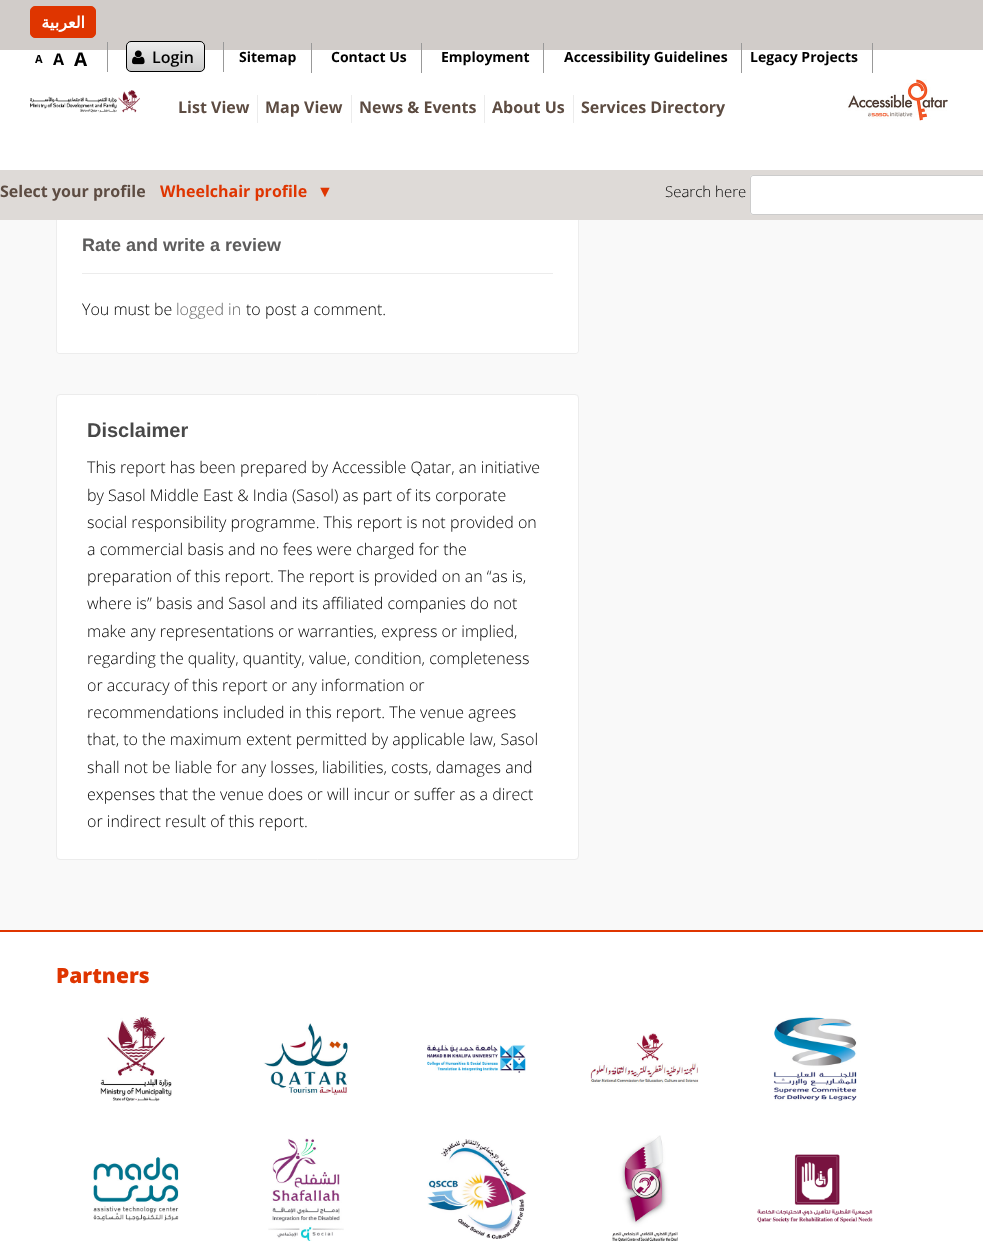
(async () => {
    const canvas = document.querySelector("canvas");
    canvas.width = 983;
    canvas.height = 1259;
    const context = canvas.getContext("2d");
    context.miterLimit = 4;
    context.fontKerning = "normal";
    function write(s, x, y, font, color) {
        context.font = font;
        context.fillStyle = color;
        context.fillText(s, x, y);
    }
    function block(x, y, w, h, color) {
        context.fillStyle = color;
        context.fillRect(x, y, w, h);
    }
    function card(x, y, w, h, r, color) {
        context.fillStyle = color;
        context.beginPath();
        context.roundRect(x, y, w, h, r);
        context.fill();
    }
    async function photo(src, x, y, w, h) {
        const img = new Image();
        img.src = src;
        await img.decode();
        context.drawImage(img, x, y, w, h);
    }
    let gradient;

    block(0, 0, 983, 1259, "rgb(249, 249, 249)");
    block(0, 50, 983, 120, "rgb(255, 255, 255)");
    block(0, 0, 983, 50, "rgb(209, 204, 201)");
    context.fillStyle = "rgb(223, 53, 0)";
    context.beginPath();
    context.roundRect(30.5, 6.5, 65, 31, 4.5);
    context.fill();
    context.strokeStyle = "rgb(223, 53, 0)";
    context.stroke();
    context.direction = "rtl";
    write("العربية", 85, 28, "bold 16px DejaVu Sans", "rgb(255, 255, 255)");
    context.direction = "ltr";
    write("A", 35, 63, "bold 11px Open Sans", "rgb(0, 0, 0)");
    write("A", 53, 65, "bold 16px Open Sans", "rgb(0, 0, 0)");
    write("A", 74, 66, "bold 19px Open Sans", "rgb(0, 0, 0)");
    context.save();
    context.beginPath();
    context.roundRect(126, 41, 79, 31, 5);
    context.clip();
    gradient = context.createLinearGradient(166, 42, 166, 71);
    gradient.addColorStop(0, "rgb(238, 238, 238)");
    gradient.addColorStop(1, "rgb(204, 204, 204)");
    context.fillStyle = gradient;
    context.fillRect(126, 42, 79, 29);
    context.restore();
    context.beginPath();
    context.roundRect(126.5, 41.5, 78, 30, 4.5);
    context.strokeStyle = "rgb(0, 0, 0)";
    context.stroke();
    block(107, 42, 1, 30, "rgb(153, 153, 153)");
    await photo("media/1.png", 132, 50, 13, 15);
    write("Login", 152, 63, "600 16px Open Sans", "rgb(0, 0, 0)");
    block(223, 42, 1, 30, "rgb(153, 153, 153)");
    write("Sitemap", 239, 62, "bold 14px Open Sans", "rgb(0, 0, 0)");
    block(311, 43, 1, 30, "rgb(153, 153, 153)");
    write("Contact Us", 331, 62, "bold 14px Open Sans", "rgb(0, 0, 0)");
    block(421, 43, 1, 30, "rgb(153, 153, 153)");
    write("Employment", 441, 62, "bold 14px Open Sans", "rgb(0, 0, 0)");
    block(543, 43, 1, 30, "rgb(153, 153, 153)");
    write("Accessibility Guidelines", 564, 62, "bold 14px Open Sans", "rgb(0, 0, 0)");
    block(741, 43, 1, 30, "rgb(153, 153, 153)");
    write("Legacy Projects", 750, 62, "bold 14px Open Sans", "rgb(0, 0, 0)");
    block(872, 43, 1, 30, "rgb(153, 153, 153)");
    await photo("media/2.png", 30, 90, 110, 23);
    write("List View", 178, 113, "bold 16px Open Sans", "rgb(93, 76, 66)");
    block(257, 95, 1, 28, "rgb(236, 236, 236)");
    write("Map View", 265, 113, "bold 16px Open Sans", "rgb(93, 76, 66)");
    block(351, 95, 1, 28, "rgb(236, 236, 236)");
    write("News & Events", 359, 113, "bold 16px Open Sans", "rgb(93, 76, 66)");
    block(484, 95, 1, 28, "rgb(236, 236, 236)");
    write("About Us", 492, 113, "bold 16px Open Sans", "rgb(93, 76, 66)");
    block(573, 95, 1, 28, "rgb(236, 236, 236)");
    write("Services Directory", 581, 113, "bold 16px Open Sans", "rgb(93, 76, 66)");
    await photo("media/3.png", 847, 79, 101, 42);
    card(56, 204, 523, 150, 3, "rgb(255, 255, 255)");
    context.beginPath();
    context.roundRect(56.5, 204.5, 522, 149, 2.5);
    context.strokeStyle = "rgba(0, 0, 0, 0.07)";
    context.stroke();
    block(0, 170, 983, 50, "rgb(222, 218, 215)");
    write("Select your profile", 0, 197, "bold 16px Open Sans", "rgb(93, 76, 66)");
    write("Wheelchair profile", 160, 197, "bold 16px Open Sans", "rgb(223, 53, 0)");
    write("▼", 317, 197, "bold 16px Liberation Serif", "rgb(223, 53, 0)");
    write("Search here", 665, 197, "300 15px Open Sans", "rgb(0, 0, 0)");
    card(750, 175, 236, 40, 3, "rgb(255, 255, 255)");
    context.beginPath();
    context.roundRect(750.5, 175.5, 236, 39, 2.5);
    context.strokeStyle = "rgba(0, 0, 0, 0.2)";
    context.stroke();
    block(82, 273, 471, 1, "rgb(236, 236, 236)");
    write("Rate and write a review", 82, 251, "bold 18px Liberation Sans", "rgb(93, 92, 92)");
    write("You must be", 82, 315, "300 16px Open Sans", "rgb(0, 0, 0)");
    write("logged in", 176, 315, "300 16px Open Sans", "rgb(102, 102, 102)");
    write("to post a comment.", 246, 315, "300 16px Open Sans", "rgb(0, 0, 0)");
    context.fillStyle = "rgb(255, 255, 255)";
    context.beginPath();
    context.roundRect(56.5, 394.5, 522, 465, 3.5);
    context.fill();
    context.strokeStyle = "rgb(236, 236, 236)";
    context.stroke();
    write("Disclaimer", 87, 437, "bold 20px Liberation Sans", "rgb(72, 72, 72)");
    write("This report has been prepared by Accessible Qatar, an initiative", 87, 473, "300 16px Open Sans", "rgb(0, 0, 0)");
    write("by Sasol Middle East & India (Sasol) as part of its corporate", 87, 501, "300 16px Open Sans", "rgb(0, 0, 0)");
    write("social responsibility programme. This report is not provided on", 87, 528, "300 16px Open Sans", "rgb(0, 0, 0)");
    write("a commercial basis and no fees were charged for the", 87, 555, "300 16px Open Sans", "rgb(0, 0, 0)");
    write("preparation of this report. The report is provided on an “as is,", 87, 582, "300 16px Open Sans", "rgb(0, 0, 0)");
    write("where is” basis and Sasol and its affiliated companies do not", 87, 609, "300 16px Open Sans", "rgb(0, 0, 0)");
    write("make any representations or warranties, express or implied,", 87, 637, "300 16px Open Sans", "rgb(0, 0, 0)");
    write("regarding the quality, quantity, value, condition, completeness", 87, 664, "300 16px Open Sans", "rgb(0, 0, 0)");
    write("or accuracy of this report or any information or", 87, 691, "300 16px Open Sans", "rgb(0, 0, 0)");
    write("recommendations included in this report. The venue agrees", 87, 718, "300 16px Open Sans", "rgb(0, 0, 0)");
    write("that, to the maximum extent permitted by applicable law, Sasol", 87, 745, "300 16px Open Sans", "rgb(0, 0, 0)");
    write("shall not be liable for any losses, liabilities, costs, damages and", 87, 773, "300 16px Open Sans", "rgb(0, 0, 0)");
    write("expenses that the venue does or will incur or suffer as a direct", 87, 800, "300 16px Open Sans", "rgb(0, 0, 0)");
    write("or indirect result of this report.", 87, 827, "300 16px Open Sans", "rgb(0, 0, 0)");
    block(0, 932, 983, 327, "rgb(255, 255, 255)");
    block(0, 930, 983, 2, "rgb(223, 53, 0)");
    write("Partners", 56, 983, "800 21px Open Sans", "rgb(223, 53, 0)");
    await photo("media/4.png", 100, 1016, 72, 86);
    await photo("media/5.png", 263, 1023, 85, 72);
    await photo("media/6.png", 427, 1044, 99, 29);
    await photo("media/7.png", 590, 1032, 109, 52);
    await photo("media/8.png", 773, 1016, 84, 85);
    await photo("media/9.png", 93, 1157, 86, 64);
    await photo("media/10.png", 268, 1138, 76, 103);
    await photo("media/11.png", 427, 1139, 100, 100);
    await photo("media/12.png", 612, 1135, 66, 107);
    await photo("media/13.png", 757, 1154, 116, 69);
})();
